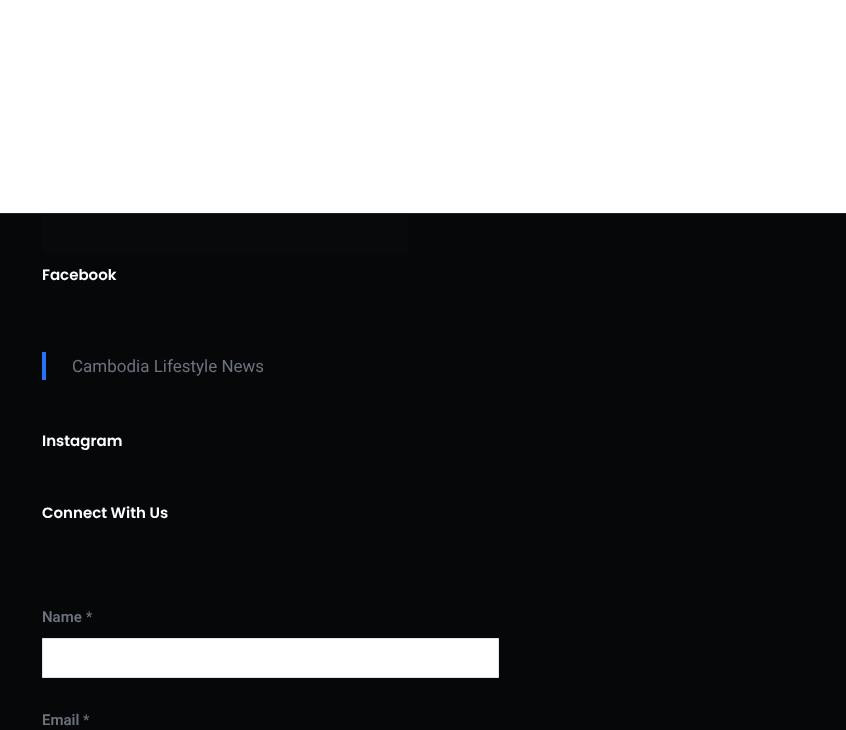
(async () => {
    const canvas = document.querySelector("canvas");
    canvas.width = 846;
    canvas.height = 730;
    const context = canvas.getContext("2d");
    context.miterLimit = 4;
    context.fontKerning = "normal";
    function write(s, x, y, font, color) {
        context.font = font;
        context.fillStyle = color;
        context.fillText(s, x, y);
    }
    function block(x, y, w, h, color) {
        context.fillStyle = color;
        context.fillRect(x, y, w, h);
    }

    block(0, 0, 846, 730, "rgb(255, 255, 255)");
    block(0, 214, 846, 516, "rgb(5, 7, 9)");
    block(42, 214, 366, 39, "rgb(8, 9, 11)");
    block(0, 213, 846, 1, "rgb(30, 32, 34)");
    write("Facebook", 42, 280, "600 15px Poppins", "rgb(255, 255, 255)");
    block(42, 352, 4, 28, "rgb(40, 114, 250)");
    write("Cambodia Lifestyle News", 72, 372, "17px Roboto", "rgb(108, 115, 125)");
    write("Instagram", 42, 446, "600 15px Poppins", "rgb(255, 255, 255)");
    write("Connect With Us", 42, 518, "600 15px Poppins", "rgb(255, 255, 255)");
    write("Name", 42, 622, "600 15px Roboto", "rgb(108, 115, 125)");
    write("*", 86, 622, "15px Roboto", "rgb(108, 115, 125)");
    context.fillStyle = "rgb(255, 255, 255)";
    context.beginPath();
    context.rect(42.5, 638.5, 456, 39);
    context.fill();
    context.strokeStyle = "rgb(224, 229, 235)";
    context.stroke();
    write("Email", 42, 725, "600 15px Roboto", "rgb(108, 115, 125)");
    write("*", 83, 725, "15px Roboto", "rgb(108, 115, 125)");
})();
